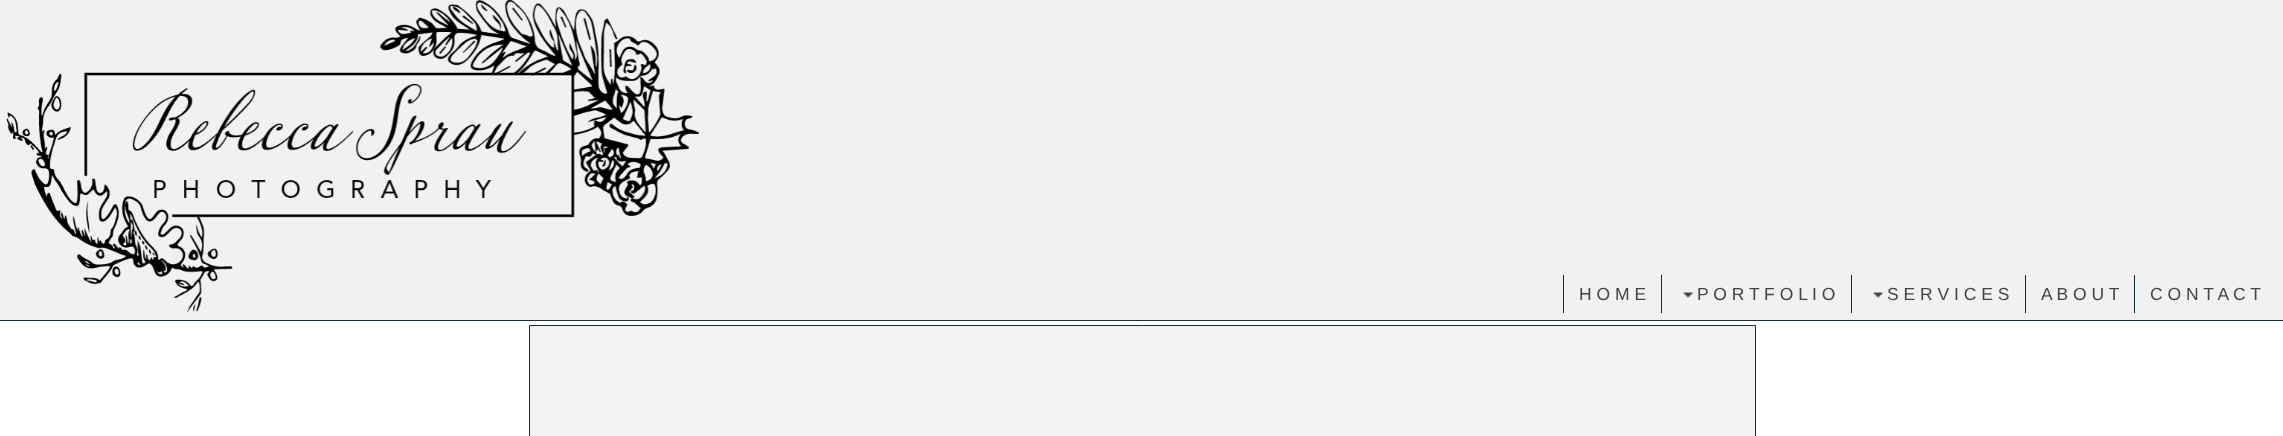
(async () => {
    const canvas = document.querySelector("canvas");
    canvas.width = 2283;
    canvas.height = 436;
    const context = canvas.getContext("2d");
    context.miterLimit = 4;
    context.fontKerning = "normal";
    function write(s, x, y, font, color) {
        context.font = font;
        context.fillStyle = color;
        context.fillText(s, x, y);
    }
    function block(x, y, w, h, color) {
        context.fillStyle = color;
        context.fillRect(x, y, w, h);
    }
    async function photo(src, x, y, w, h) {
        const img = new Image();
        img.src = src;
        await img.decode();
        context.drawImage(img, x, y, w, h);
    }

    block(0, 0, 2283, 436, "rgb(255, 255, 255)");
    block(0, 0, 2283, 320, "rgb(241, 241, 241)");
    block(0, 320, 2283, 1, "rgb(24, 46, 60)");
    await photo("media/1.png", 6, 0, 693, 312);
    block(1563, 275, 1, 38, "rgb(24, 46, 60)");
    write("H O M E", 1579, 300, "17.5px Liberation Sans", "rgb(68, 68, 68)");
    block(1661, 275, 1, 38, "rgb(24, 46, 60)");
    await photo("media/2.png", 1683, 292, 11, 6);
    write("P O R T F O L I O", 1697, 300, "17.5px Liberation Sans", "rgb(68, 68, 68)");
    block(1851, 275, 1, 38, "rgb(24, 46, 60)");
    await photo("media/2.png", 1873, 292, 11, 6);
    write("S E R V I C E S", 1887, 300, "17.5px Liberation Sans", "rgb(68, 68, 68)");
    block(2025, 275, 1, 38, "rgb(24, 46, 60)");
    write("A B O U T", 2041, 300, "17.5px Liberation Sans", "rgb(68, 68, 68)");
    block(2134, 275, 1, 38, "rgb(24, 46, 60)");
    write("C O N T A C T", 2150, 300, "17.5px Liberation Sans", "rgb(68, 68, 68)");
    context.fillStyle = "rgb(242, 242, 242)";
    context.beginPath();
    context.rect(529.5, 325.5, 1226, 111);
    context.fill();
    context.strokeStyle = "rgb(24, 46, 60)";
    context.stroke();
})();
